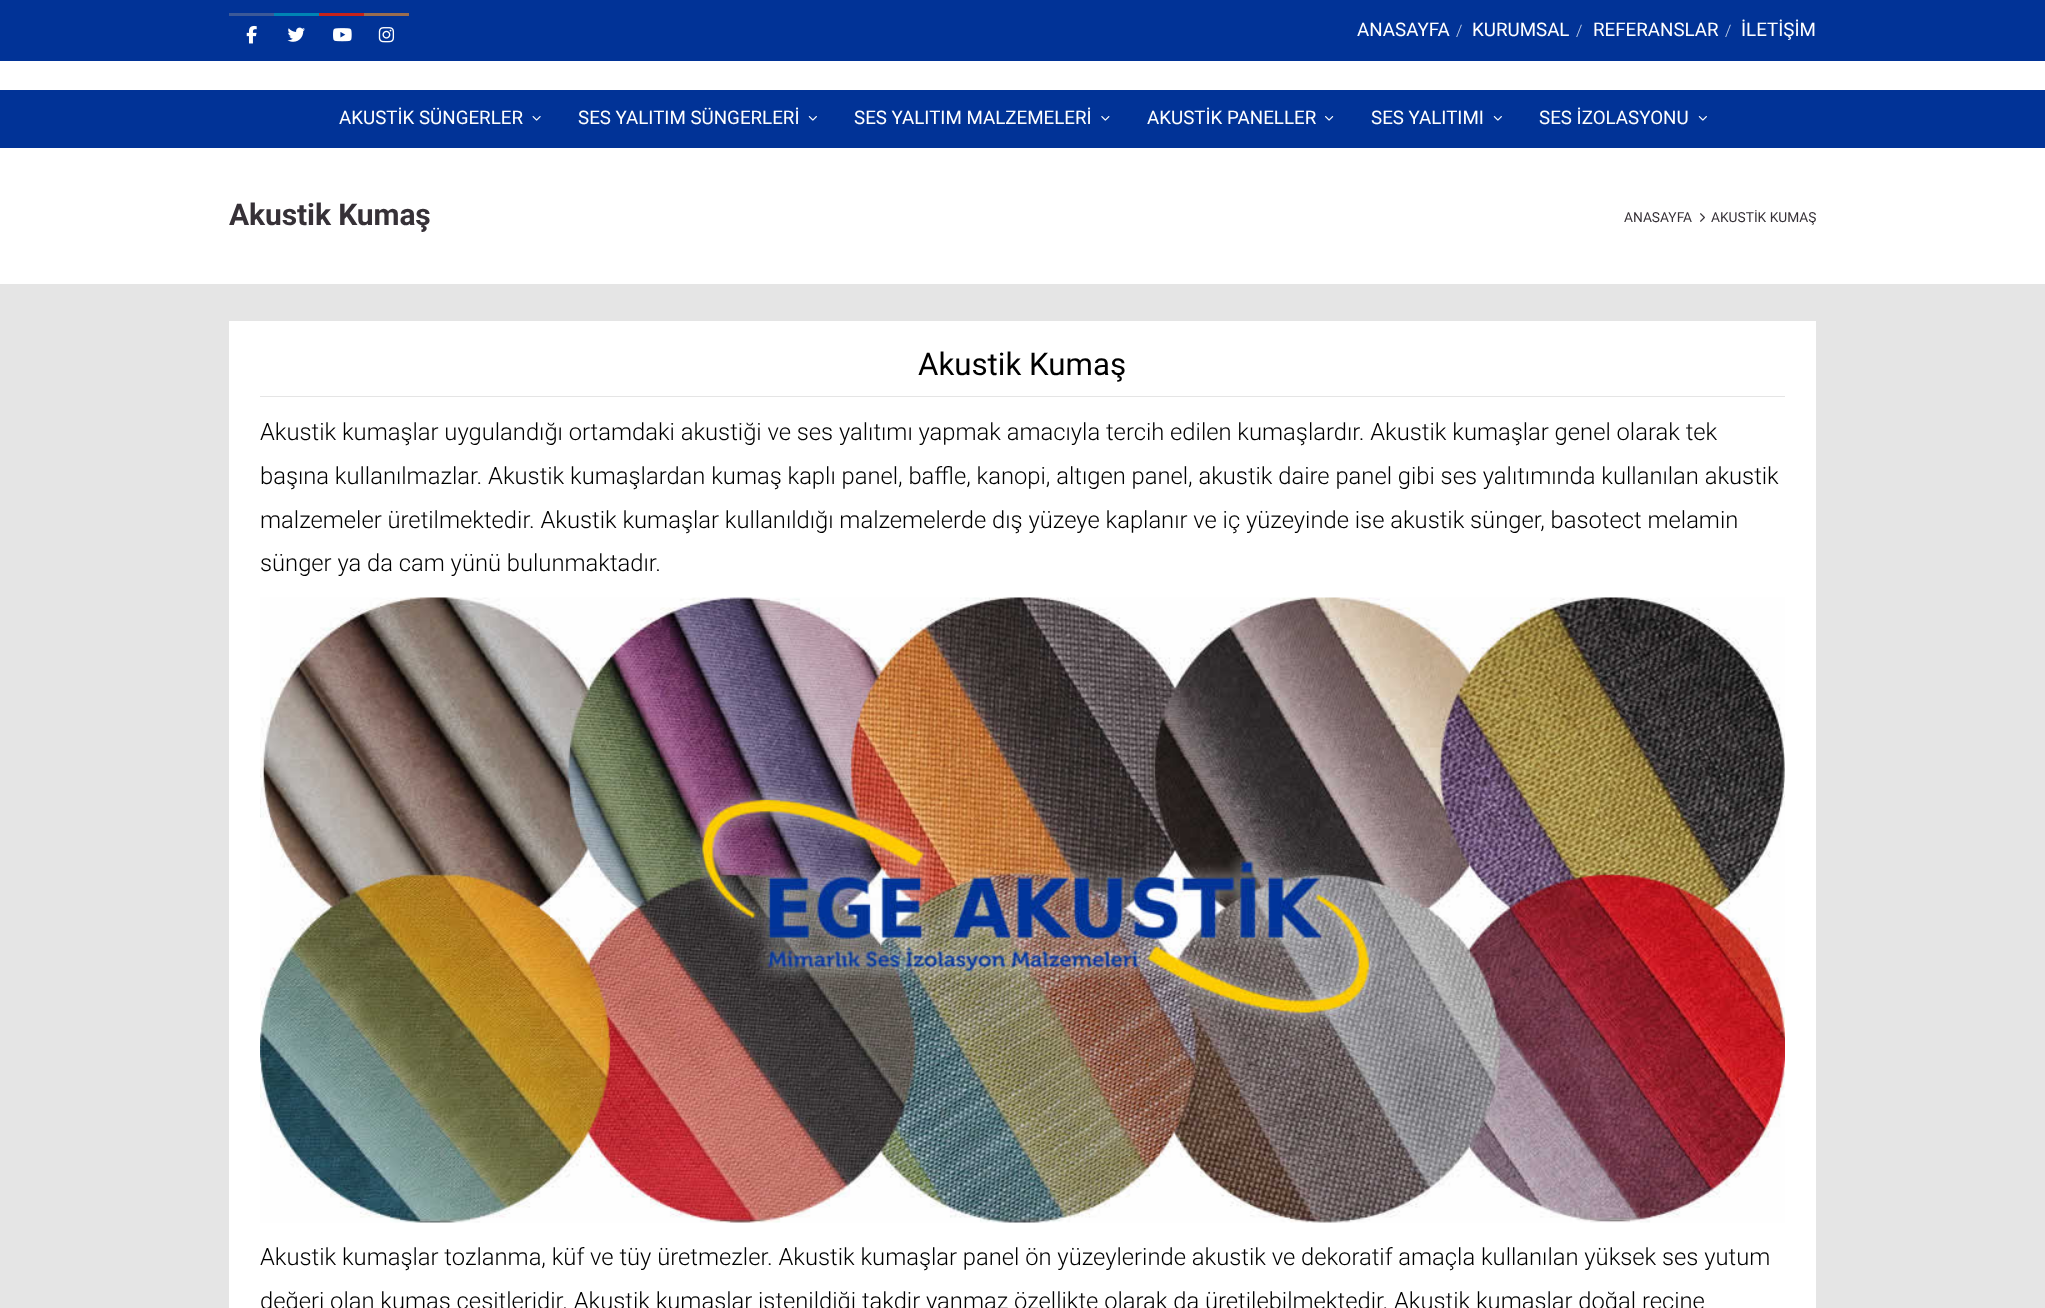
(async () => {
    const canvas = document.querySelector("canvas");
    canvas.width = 2045;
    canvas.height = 1308;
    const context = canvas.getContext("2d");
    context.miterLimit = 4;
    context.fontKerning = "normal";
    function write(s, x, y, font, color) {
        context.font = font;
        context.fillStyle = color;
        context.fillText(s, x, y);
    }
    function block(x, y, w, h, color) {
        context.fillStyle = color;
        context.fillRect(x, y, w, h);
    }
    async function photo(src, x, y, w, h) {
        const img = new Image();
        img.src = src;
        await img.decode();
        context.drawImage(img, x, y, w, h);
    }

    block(0, 0, 2045, 1308, "rgb(229, 229, 229)");
    block(0, 0, 2045, 61, "rgb(1, 51, 151)");
    block(229, 13, 45, 3, "rgb(59, 89, 152)");
    await photo("media/1.png", 246, 25, 11, 19);
    block(274, 13, 45, 3, "rgb(0, 132, 180)");
    await photo("media/2.png", 287, 27, 18, 15);
    block(319, 13, 45, 3, "rgb(199, 35, 26)");
    await photo("media/3.png", 333, 28, 19, 14);
    block(364, 13, 45, 3, "rgb(154, 109, 80)");
    await photo("media/4.png", 378, 27, 17, 16);
    write("ANASAYFA", 1357, 36, "18.75px Roboto", "rgb(255, 255, 255)");
    write("/", 1456, 36, "300 16px Roboto", "rgb(204, 214, 234)");
    write("KURUMSAL", 1472, 36, "18.75px Roboto", "rgb(255, 255, 255)");
    write("/", 1576, 36, "300 16px Roboto", "rgb(204, 214, 234)");
    write("REFERANSLAR", 1593, 36, "18.75px Roboto", "rgb(255, 255, 255)");
    write("/", 1725, 36, "300 16px Roboto", "rgb(204, 214, 234)");
    write("İLETİŞİM", 1741, 36, "18.75px Roboto", "rgb(255, 255, 255)");
    block(0, 61, 2045, 29, "rgb(255, 255, 255)");
    block(0, 90, 2045, 58, "rgb(1, 51, 151)");
    write("AKUSTİK SÜNGERLER", 339, 124, "18.75px Roboto", "rgb(255, 255, 255)");
    await photo("media/5.png", 532, 116, 9, 5);
    write("SES YALITIM SÜNGERLERİ", 578, 124, "18.75px Roboto", "rgb(255, 255, 255)");
    await photo("media/6.png", 808, 116, 9, 5);
    write("SES YALITIM MALZEMELERİ", 854, 124, "18.75px Roboto", "rgb(255, 255, 255)");
    await photo("media/7.png", 1101, 116, 9, 5);
    write("AKUSTİK PANELLER", 1147, 124, "18.75px Roboto", "rgb(255, 255, 255)");
    await photo("media/8.png", 1325, 116, 9, 5);
    write("SES YALITIMI", 1371, 124, "18.75px Roboto", "rgb(255, 255, 255)");
    await photo("media/6.png", 1493, 116, 9, 5);
    write("SES İZOLASYONU", 1539, 124, "18.75px Roboto", "rgb(255, 255, 255)");
    await photo("media/6.png", 1698, 116, 9, 5);
    block(0, 148, 2045, 136, "rgb(255, 255, 255)");
    context.letterSpacing = "-0.1px";
    write("Akustik Kumaş", 229, 225, "bold 30px Roboto", "rgb(54, 49, 55)");
    context.letterSpacing = "0px";
    write("ANASAYFA", 1624, 222, "13.75px Roboto", "rgb(54, 49, 55)");
    await photo("media/9.png", 1700, 213, 5, 9);
    write("AKUSTİK KUMAŞ", 1711, 222, "13.75px Roboto", "rgb(54, 49, 55)");
    block(229, 321, 1587, 987, "rgb(255, 255, 255)");
    block(260, 396, 1525, 1, "rgb(229, 229, 229)");
    write("Akustik Kumaş", 918, 375, "31.25px Roboto", "rgb(0, 0, 0)");
    write("Akustik kumaşlar uygulandığı ortamdaki akustiği ve ses yalıtımı yapmak amacıyla tercih edilen kumaşlardır. Akustik kumaşlar genel olarak tek", 260, 440, "300 23.75px Roboto", "rgb(0, 0, 0)");
    write("başına kullanılmazlar. Akustik kumaşlardan kumaş kaplı panel, baffle, kanopi, altıgen panel, akustik daire panel gibi ses yalıtımında kullanılan akustik", 260, 484, "300 23.75px Roboto", "rgb(0, 0, 0)");
    write("malzemeler üretilmektedir. Akustik kumaşlar kullanıldığı malzemelerde dış yüzeye kaplanır ve iç yüzeyinde ise akustik sünger, basotect melamin", 260, 528, "300 23.75px Roboto", "rgb(0, 0, 0)");
    write("sünger ya da cam yünü bulunmaktadır.", 260, 571, "300 23.75px Roboto", "rgb(0, 0, 0)");
    await photo("media/10.png", 260, 597, 1525, 626);
    write("Akustik kumaşlar tozlanma, küf ve tüy üretmezler. Akustik kumaşlar panel ön yüzeylerinde akustik ve dekoratif amaçla kullanılan yüksek ses yutum", 260, 1265, "300 23.75px Roboto", "rgb(0, 0, 0)");
    write("değeri olan kumaş çeşitleridir. Akustik kumaşlar istenildiği takdir yanmaz özellikte olarak da üretilebilmektedir. Akustik kumaşlar doğal reçine", 260, 1309, "300 23.75px Roboto", "rgb(0, 0, 0)");
})();
